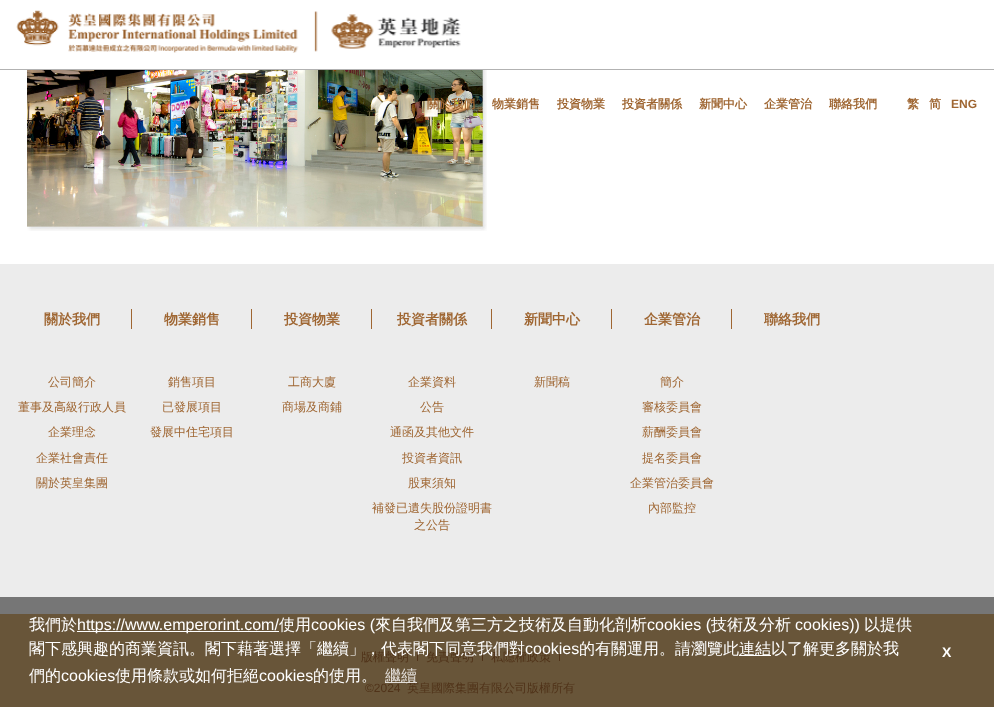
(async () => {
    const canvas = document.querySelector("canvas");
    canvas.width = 994;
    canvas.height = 707;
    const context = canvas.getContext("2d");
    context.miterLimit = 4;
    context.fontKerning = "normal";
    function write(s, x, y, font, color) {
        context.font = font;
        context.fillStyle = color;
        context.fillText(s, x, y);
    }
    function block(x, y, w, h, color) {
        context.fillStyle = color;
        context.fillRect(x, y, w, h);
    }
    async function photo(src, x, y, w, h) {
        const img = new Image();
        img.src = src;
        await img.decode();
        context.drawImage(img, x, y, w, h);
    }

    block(0, 0, 994, 707, "rgb(255, 255, 255)");
    block(0, 69, 994, 1, "rgb(178, 178, 178)");
    await photo("media/1.png", 16, 10, 445, 43);
    await photo("media/2.png", 27, 70, 460, 161);
    write("關於我們", 427, 108, "bold 12px WenQuanYi Zen Hei", "rgb(159, 102, 50)");
    write("物業銷售", 492, 108, "bold 12px WenQuanYi Zen Hei", "rgb(159, 102, 50)");
    write("投資物業", 557, 108, "bold 12px WenQuanYi Zen Hei", "rgb(159, 102, 50)");
    write("投資者關係", 622, 108, "bold 12px WenQuanYi Zen Hei", "rgb(159, 102, 50)");
    write("新聞中心", 699, 108, "bold 12px WenQuanYi Zen Hei", "rgb(159, 102, 50)");
    write("企業管治", 764, 108, "bold 12px WenQuanYi Zen Hei", "rgb(159, 102, 50)");
    write("聯絡我們", 829, 108, "bold 12px WenQuanYi Zen Hei", "rgb(159, 102, 50)");
    write("繁", 907, 108, "bold 12px WenQuanYi Zen Hei", "rgb(159, 102, 50)");
    write("简", 929, 108, "bold 12px WenQuanYi Zen Hei", "rgb(159, 102, 50)");
    write("ENG", 951, 108, "bold 12px Liberation Sans", "rgb(159, 102, 50)");
    block(0, 264, 994, 333, "rgb(236, 236, 236)");
    block(0, 597, 994, 17, "rgb(118, 118, 118)");
    block(131, 309, 1, 20, "rgb(159, 102, 50)");
    write("關於我們", 44, 324, "bold 14px WenQuanYi Zen Hei", "rgb(159, 102, 50)");
    write("公司簡介", 48, 386, "500 12px WenQuanYi Zen Hei", "rgb(159, 102, 50)");
    write("董事及高級行政人員", 18, 411, "500 12px WenQuanYi Zen Hei", "rgb(159, 102, 50)");
    write("企業理念", 48, 436, "500 12px WenQuanYi Zen Hei", "rgb(159, 102, 50)");
    write("企業社會責任", 36, 462, "500 12px WenQuanYi Zen Hei", "rgb(159, 102, 50)");
    write("關於英皇集團", 36, 487, "500 12px WenQuanYi Zen Hei", "rgb(159, 102, 50)");
    block(251, 309, 1, 20, "rgb(159, 102, 50)");
    write("物業銷售", 164, 324, "bold 14px WenQuanYi Zen Hei", "rgb(159, 102, 50)");
    write("銷售項目", 168, 386, "500 12px WenQuanYi Zen Hei", "rgb(159, 102, 50)");
    write("已發展項目", 162, 411, "500 12px WenQuanYi Zen Hei", "rgb(159, 102, 50)");
    write("發展中住宅項目", 150, 436, "500 12px WenQuanYi Zen Hei", "rgb(159, 102, 50)");
    block(371, 309, 1, 20, "rgb(159, 102, 50)");
    write("投資物業", 284, 324, "bold 14px WenQuanYi Zen Hei", "rgb(159, 102, 50)");
    write("工商大廈", 288, 386, "500 12px WenQuanYi Zen Hei", "rgb(159, 102, 50)");
    write("商場及商鋪", 282, 411, "500 12px WenQuanYi Zen Hei", "rgb(159, 102, 50)");
    block(491, 309, 1, 20, "rgb(159, 102, 50)");
    write("投資者關係", 397, 324, "bold 14px WenQuanYi Zen Hei", "rgb(159, 102, 50)");
    write("企業資料", 408, 386, "500 12px WenQuanYi Zen Hei", "rgb(159, 102, 50)");
    write("公告", 420, 411, "500 12px WenQuanYi Zen Hei", "rgb(159, 102, 50)");
    write("通函及其他文件", 390, 436, "500 12px WenQuanYi Zen Hei", "rgb(159, 102, 50)");
    write("投資者資訊", 402, 462, "500 12px WenQuanYi Zen Hei", "rgb(159, 102, 50)");
    write("股東須知", 408, 487, "500 12px WenQuanYi Zen Hei", "rgb(159, 102, 50)");
    write("補發已遺失股份證明書", 372, 512, "500 12px WenQuanYi Zen Hei", "rgb(159, 102, 50)");
    write("之公告", 414, 529, "500 12px WenQuanYi Zen Hei", "rgb(159, 102, 50)");
    block(611, 309, 1, 20, "rgb(159, 102, 50)");
    write("新聞中心", 524, 324, "bold 14px WenQuanYi Zen Hei", "rgb(159, 102, 50)");
    write("新聞稿", 534, 386, "500 12px WenQuanYi Zen Hei", "rgb(159, 102, 50)");
    block(731, 309, 1, 20, "rgb(159, 102, 50)");
    write("企業管治", 644, 324, "bold 14px WenQuanYi Zen Hei", "rgb(159, 102, 50)");
    write("簡介", 660, 386, "500 12px WenQuanYi Zen Hei", "rgb(159, 102, 50)");
    write("審核委員會", 642, 411, "500 12px WenQuanYi Zen Hei", "rgb(159, 102, 50)");
    write("薪酬委員會", 642, 436, "500 12px WenQuanYi Zen Hei", "rgb(159, 102, 50)");
    write("提名委員會", 642, 462, "500 12px WenQuanYi Zen Hei", "rgb(159, 102, 50)");
    write("企業管治委員會", 630, 487, "500 12px WenQuanYi Zen Hei", "rgb(159, 102, 50)");
    write("內部監控", 648, 512, "500 12px WenQuanYi Zen Hei", "rgb(159, 102, 50)");
    write("聯絡我們", 764, 324, "bold 14px WenQuanYi Zen Hei", "rgb(159, 102, 50)");
    block(0, 614, 994, 93, "rgb(104, 85, 57)");
    write("版權聲明", 361, 661, "500 12px WenQuanYi Zen Hei", "rgb(80, 51, 25)");
    await photo("media/3.png", 417, 651, 1, 10);
    write("免責聲明", 426, 661, "500 12px WenQuanYi Zen Hei", "rgb(80, 51, 25)");
    await photo("media/3.png", 482, 651, 1, 10);
    write("私隱權政策", 491, 661, "500 12px WenQuanYi Zen Hei", "rgb(80, 51, 25)");
    await photo("media/3.png", 559, 651, 1, 10);
    write("©2024", 365, 692, "12px Liberation Sans", "rgb(80, 51, 25)");
    write("英皇國際集團有限公司版權所有", 407, 692, "500 12px WenQuanYi Zen Hei", "rgb(80, 51, 25)");
    write("我們於", 29, 630, "500 16px WenQuanYi Zen Hei", "rgb(255, 255, 255)");
    block(77, 631, 202, 1, "rgb(255, 255, 255)");
    write("https://www.emperorint.com/", 77, 630, "16px Liberation Sans", "rgb(255, 255, 255)");
    write("使用", 279, 630, "500 16px WenQuanYi Zen Hei", "rgb(255, 255, 255)");
    write("cookies (", 311, 630, "16px Liberation Sans", "rgb(255, 255, 255)");
    write("來自我們及第三方之技術及自動化剖析", 375, 630, "500 16px WenQuanYi Zen Hei", "rgb(255, 255, 255)");
    write("cookies (", 647, 630, "16px Liberation Sans", "rgb(255, 255, 255)");
    write("技術及分析", 711, 630, "500 16px WenQuanYi Zen Hei", "rgb(255, 255, 255)");
    write("cookies))", 795, 630, "16px Liberation Sans", "rgb(255, 255, 255)");
    write("以提供", 864, 630, "500 16px WenQuanYi Zen Hei", "rgb(255, 255, 255)");
    write("閣下感興趣的商業資訊。閣下藉著選擇「繼續」，代表閣下同意我們對", 29, 654, "500 16px WenQuanYi Zen Hei", "rgb(255, 255, 255)");
    write("cookies", 525, 654, "16px Liberation Sans", "rgb(255, 255, 255)");
    write("的有關運用。請瀏覽此", 579, 654, "500 16px WenQuanYi Zen Hei", "rgb(255, 255, 255)");
    block(739, 655, 32, 1, "rgb(255, 255, 255)");
    write("連結以了解更多關於我", 739, 654, "500 16px WenQuanYi Zen Hei", "rgb(255, 255, 255)");
    write("們的", 29, 681, "500 16px WenQuanYi Zen Hei", "rgb(255, 255, 255)");
    write("cookies", 61, 681, "16px Liberation Sans", "rgb(255, 255, 255)");
    write("使用條款或如何拒絕", 115, 681, "500 16px WenQuanYi Zen Hei", "rgb(255, 255, 255)");
    write("cookies", 259, 681, "16px Liberation Sans", "rgb(255, 255, 255)");
    write("的使用。", 313, 681, "500 16px WenQuanYi Zen Hei", "rgb(255, 255, 255)");
    block(385, 682, 32, 1, "rgba(255, 255, 255, 0.8)");
    write("繼續", 385, 681, "500 16px WenQuanYi Zen Hei", "rgb(226, 222, 217)");
    write("X", 942, 657, "bold 14px Liberation Sans", "rgb(255, 255, 255)");
})();
